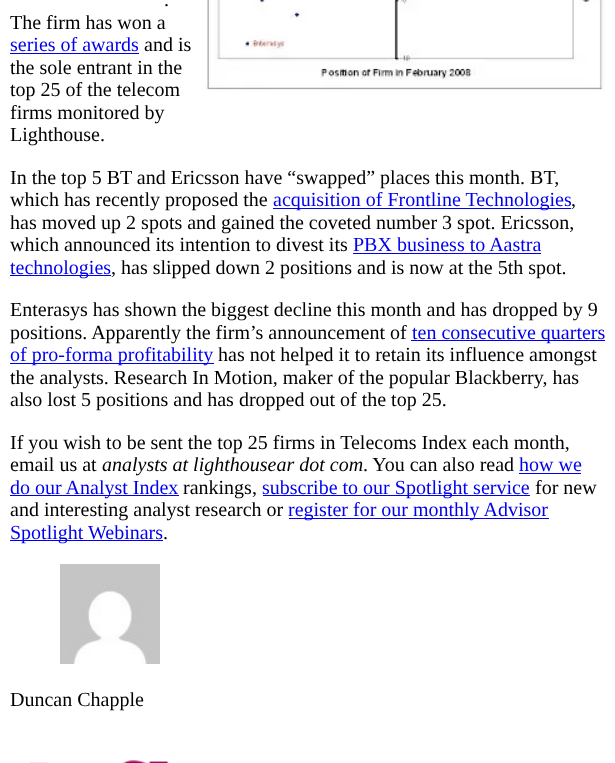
(async () => {
    const canvas = document.querySelector("canvas");
    canvas.width = 615;
    canvas.height = 763;
    const context = canvas.getContext("2d");
    context.miterLimit = 4;
    context.fontKerning = "normal";
    function write(s, x, y, font, color) {
        context.font = font;
        context.fillStyle = color;
        context.fillText(s, x, y);
    }
    function block(x, y, w, h, color) {
        context.fillStyle = color;
        context.fillRect(x, y, w, h);
    }
    async function photo(src, x, y, w, h) {
        const img = new Image();
        img.src = src;
        await img.decode();
        context.drawImage(img, x, y, w, h);
    }

    block(0, 0, 615, 763, "rgb(255, 255, 255)");
    write(".", 164, 6, "20px Liberation Serif", "rgb(0, 0, 0)");
    await photo("media/1.png", 205, 0, 400, 90);
    write("The firm has won a", 10, 29, "20px Liberation Serif", "rgb(0, 0, 0)");
    write("series of awards", 10, 51, "20px Liberation Serif", "rgb(0, 0, 238)");
    block(10, 53, 129, 1, "rgb(0, 0, 238)");
    write("and is", 144, 51, "20px Liberation Serif", "rgb(0, 0, 0)");
    write("the sole entrant in the", 10, 74, "20px Liberation Serif", "rgb(0, 0, 0)");
    write("top 25 of the telecom", 10, 96, "20px Liberation Serif", "rgb(0, 0, 0)");
    write("firms monitored by", 10, 119, "20px Liberation Serif", "rgb(0, 0, 0)");
    write("Lighthouse.", 10, 141, "20px Liberation Serif", "rgb(0, 0, 0)");
    write("In the top 5 BT and Ericsson have “swapped” places this month. BT,", 10, 184, "20px Liberation Serif", "rgb(0, 0, 0)");
    write("which has recently proposed the", 10, 206, "20px Liberation Serif", "rgb(0, 0, 0)");
    block(273, 208, 298, 1, "rgb(0, 0, 238)");
    write("acquisition of Frontline Technologies", 273, 206, "20px Liberation Serif", "rgb(0, 0, 238)");
    write(",", 571, 206, "20px Liberation Serif", "rgb(0, 0, 0)");
    write("has moved up 2 spots and gained the coveted number 3 spot. Ericsson,", 10, 229, "20px Liberation Serif", "rgb(0, 0, 0)");
    write("which announced its intention to divest its", 10, 251, "20px Liberation Serif", "rgb(0, 0, 0)");
    write("PBX business to Aastra", 353, 251, "20px Liberation Serif", "rgb(0, 0, 238)");
    block(353, 253, 188, 1, "rgb(0, 0, 238)");
    block(10, 275, 101, 1, "rgb(0, 0, 238)");
    write("technologies", 10, 274, "20px Liberation Serif", "rgb(0, 0, 238)");
    write(", has slipped down 2 positions and is now at the 5th spot.", 111, 274, "20px Liberation Serif", "rgb(0, 0, 0)");
    write("Enterasys has shown the biggest decline this month and has dropped by 9", 10, 316, "20px Liberation Serif", "rgb(0, 0, 0)");
    write("positions. Apparently the firm’s announcement of", 10, 339, "20px Liberation Serif", "rgb(0, 0, 0)");
    block(411, 340, 194, 1, "rgb(0, 0, 238)");
    write("ten consecutive quarters", 412, 339, "20px Liberation Serif", "rgb(0, 0, 238)");
    block(10, 363, 204, 1, "rgb(0, 0, 238)");
    write("of pro-forma profitability", 10, 361, "20px Liberation Serif", "rgb(0, 0, 238)");
    write("has not helped it to retain its influence amongst", 218, 361, "20px Liberation Serif", "rgb(0, 0, 0)");
    write("the analysts. Research In Motion, maker of the popular Blackberry, has", 10, 384, "20px Liberation Serif", "rgb(0, 0, 0)");
    write("also lost 5 positions and has dropped out of the top 25.", 10, 406, "20px Liberation Serif", "rgb(0, 0, 0)");
    write("If you wish to be sent the top 25 firms in Telecoms Index each month,", 10, 449, "20px Liberation Serif", "rgb(0, 0, 0)");
    write("email us at", 10, 471, "20px Liberation Serif", "rgb(0, 0, 0)");
    write("analysts at lighthousear dot com", 102, 471, "italic 20px Liberation Serif", "rgb(0, 0, 0)");
    write(". You can also read", 363, 471, "20px Liberation Serif", "rgb(0, 0, 0)");
    write("how we", 519, 471, "20px Liberation Serif", "rgb(0, 0, 238)");
    block(519, 473, 62, 1, "rgb(0, 0, 238)");
    block(10, 495, 169, 1, "rgb(0, 0, 238)");
    write("do our Analyst Index", 10, 494, "20px Liberation Serif", "rgb(0, 0, 238)");
    write("rankings,", 183, 494, "20px Liberation Serif", "rgb(0, 0, 0)");
    block(263, 495, 267, 1, "rgb(0, 0, 238)");
    write("subscribe to our Spotlight service", 262, 494, "20px Liberation Serif", "rgb(0, 0, 238)");
    write("for new", 535, 494, "20px Liberation Serif", "rgb(0, 0, 0)");
    write("and interesting analyst research or", 10, 516, "20px Liberation Serif", "rgb(0, 0, 0)");
    block(289, 518, 260, 1, "rgb(0, 0, 238)");
    write("register for our monthly Advisor", 288, 516, "20px Liberation Serif", "rgb(0, 0, 238)");
    block(10, 540, 153, 1, "rgb(0, 0, 238)");
    write("Spotlight Webinars", 10, 539, "20px Liberation Serif", "rgb(0, 0, 238)");
    write(".", 163, 539, "20px Liberation Serif", "rgb(0, 0, 0)");
    await photo("media/2.png", 60, 564, 100, 100);
    write("Duncan Chapple", 10, 706, "20px Liberation Serif", "rgb(0, 0, 0)");
    await photo("media/3.png", 29, 760, 140, 3);
})();
